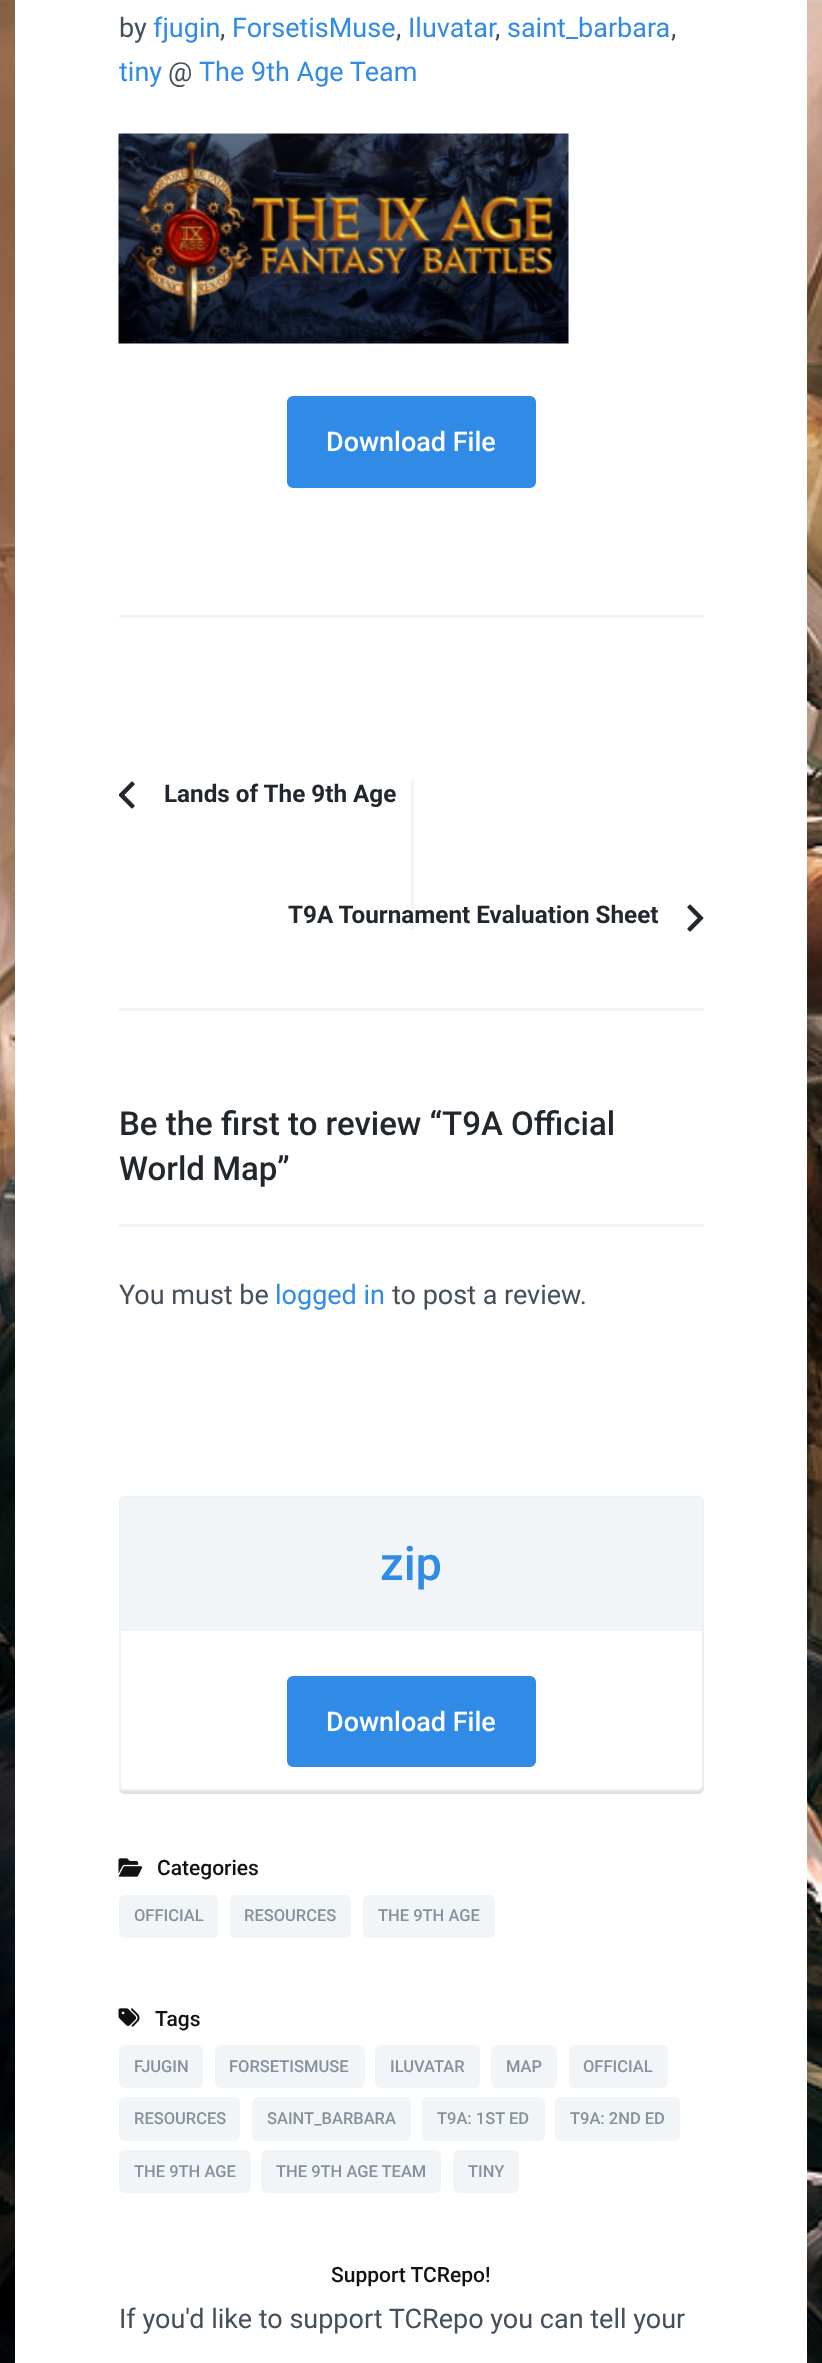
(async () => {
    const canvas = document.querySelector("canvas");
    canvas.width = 822;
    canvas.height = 2363;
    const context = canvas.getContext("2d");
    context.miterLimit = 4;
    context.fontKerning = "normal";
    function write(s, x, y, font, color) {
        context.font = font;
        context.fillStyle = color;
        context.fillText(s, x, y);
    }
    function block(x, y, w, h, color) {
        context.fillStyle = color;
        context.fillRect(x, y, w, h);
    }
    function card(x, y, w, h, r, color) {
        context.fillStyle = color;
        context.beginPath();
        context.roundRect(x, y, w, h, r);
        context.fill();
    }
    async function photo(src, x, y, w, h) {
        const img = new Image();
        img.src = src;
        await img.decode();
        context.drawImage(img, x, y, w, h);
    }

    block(0, 0, 822, 2363, "rgb(255, 255, 255)");
    await photo("media/1.png", 0, 0, 822, 2363);
    block(15, 0, 792, 2363, "rgb(255, 255, 255)");
    context.fillStyle = "rgb(241, 245, 248)";
    context.beginPath();
    context.moveTo(119, 615);
    context.lineTo(119, 618);
    context.lineTo(704, 618);
    context.lineTo(704, -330);
    context.lineTo(704, 615);
    context.closePath();
    context.fill();
    write("by", 119, 37, "27px Roboto", "rgb(69, 79, 89)");
    write("fjugin", 153, 37, "27px Roboto", "rgb(47, 139, 230)");
    write(",", 220, 37, "27px Roboto", "rgb(69, 79, 89)");
    write("ForsetisMuse", 232, 37, "27px Roboto", "rgb(47, 139, 230)");
    write(",", 396, 37, "27px Roboto", "rgb(69, 79, 89)");
    write("Iluvatar", 408, 37, "27px Roboto", "rgb(47, 139, 230)");
    write(",", 495, 37, "27px Roboto", "rgb(69, 79, 89)");
    write("saint_barbara", 507, 37, "27px Roboto", "rgb(47, 139, 230)");
    write(",", 671, 37, "27px Roboto", "rgb(69, 79, 89)");
    write("tiny", 119, 81, "27px Roboto", "rgb(47, 139, 230)");
    write("@", 168, 81, "27px Roboto", "rgb(69, 79, 89)");
    write("The 9th Age Team", 199, 81, "27px Roboto", "rgb(47, 139, 230)");
    await photo("media/2.png", 118, 133, 451, 211);
    context.beginPath();
    context.roundRect(288, 397, 247, 90, 5);
    context.fill();
    context.strokeStyle = "rgb(47, 139, 230)";
    context.lineWidth = 2;
    context.stroke();
    write("Download File", 326, 451, "500 27px Roboto", "rgb(255, 255, 255)");
    block(119, 1008, 585, 3, "rgb(241, 245, 248)");
    await photo("media/3.png", 119, 781, 16, 28);
    write("Lands of The 9th Age", 164, 802, "bold 24.25px Roboto", "rgb(33, 39, 44)");
    block(411, 780, 3, 150, "rgb(241, 245, 248)");
    write("T9A Tournament Evaluation Sheet", 288, 923, "bold 24.25px Roboto", "rgb(33, 39, 44)");
    await photo("media/4.png", 687, 904, 17, 28);
    block(119, 1224, 585, 3, "rgb(241, 245, 248)");
    write("Be the first to review “T9A Official", 119, 1135, "500 33px Roboto", "rgb(33, 39, 44)");
    context.wordSpacing = "-1px";
    write("World Map", 119, 1180, "500 33px Roboto", "rgb(33, 39, 44)");
    context.wordSpacing = "0px";
    write("”", 277, 1180, "500 33px Roboto", "rgb(33, 39, 44)");
    write("You must be", 119, 1304, "27px Roboto", "rgb(69, 79, 89)");
    write("logged in", 275, 1304, "27px Roboto", "rgb(47, 139, 230)");
    write("to post a review.", 392, 1304, "27px Roboto", "rgb(69, 79, 89)");
    context.fillStyle = "rgb(218, 225, 231)";
    context.beginPath();
    context.moveTo(119, 1787);
    context.lineTo(119, 1788);
    context.bezierCurveTo(119, 1791, 122, 1794, 125, 1794);
    context.lineTo(698, 1794);
    context.bezierCurveTo(701, 1794, 704, 1791, 704, 1788);
    context.lineTo(704, 1505);
    context.lineTo(704, 1503);
    context.lineTo(704, 1785);
    context.bezierCurveTo(704, 1788, 701, 1791, 698, 1791);
    context.lineTo(124, 1791);
    context.bezierCurveTo(122, 1791, 120, 1790, 119, 1787);
    context.closePath();
    context.fill();
    context.beginPath();
    context.roundRect(120, 1497, 583, 293, 5);
    context.strokeStyle = "rgba(218, 225, 231, 0.5)";
    context.stroke();
    block(120, 1497, 582, 134, "rgb(241, 245, 248)");
    write("zip", 380, 1580, "500 47px Roboto", "rgb(47, 139, 230)");
    context.beginPath();
    context.roundRect(288, 1677, 247, 89, 5);
    context.fill();
    context.strokeStyle = "rgb(47, 139, 230)";
    context.stroke();
    write("Download File", 326, 1731, "500 27px Roboto", "rgb(255, 255, 255)");
    await photo("media/5.png", 118, 1858, 25, 19);
    write("Categories", 157, 1875, "500 21px Roboto", "rgb(17, 17, 17)");
    card(119, 1895, 99, 43, 6, "rgb(241, 245, 248)");
    write("OFFICIAL", 134, 1921, "500 16.5px Roboto", "rgb(134, 145, 157)");
    card(230, 1895, 121, 43, 6, "rgb(241, 245, 248)");
    write("RESOURCES", 244, 1921, "500 16.5px Roboto", "rgb(134, 145, 157)");
    card(363, 1895, 132, 43, 6, "rgb(241, 245, 248)");
    write("THE 9TH AGE", 378, 1921, "500 16.5px Roboto", "rgb(134, 145, 157)");
    await photo("media/6.png", 118, 2008, 22, 19);
    write("Tags", 155, 2026, "500 21px Roboto", "rgb(17, 17, 17)");
    card(119, 2045, 84, 43, 6, "rgb(241, 245, 248)");
    write("FJUGIN", 134, 2072, "500 16.5px Roboto", "rgb(134, 145, 157)");
    card(215, 2045, 150, 43, 6, "rgb(241, 245, 248)");
    write("FORSETISMUSE", 229, 2072, "500 16.5px Roboto", "rgb(134, 145, 157)");
    card(375, 2045, 105, 43, 6, "rgb(241, 245, 248)");
    write("ILUVATAR", 390, 2072, "500 16.5px Roboto", "rgb(134, 145, 157)");
    card(491, 2045, 66, 43, 6, "rgb(241, 245, 248)");
    write("MAP", 506, 2072, "500 16.5px Roboto", "rgb(134, 145, 157)");
    card(569, 2045, 99, 43, 6, "rgb(241, 245, 248)");
    write("OFFICIAL", 583, 2072, "500 16.5px Roboto", "rgb(134, 145, 157)");
    card(119, 2097, 121, 44, 6, "rgb(241, 245, 248)");
    write("RESOURCES", 134, 2124, "500 16.5px Roboto", "rgb(134, 145, 157)");
    card(252, 2097, 159, 44, 6, "rgb(241, 245, 248)");
    write("SAINT_BARBARA", 267, 2124, "500 16.5px Roboto", "rgb(134, 145, 157)");
    card(422, 2097, 123, 44, 6, "rgb(241, 245, 248)");
    write("T9A: 1ST ED", 437, 2124, "500 16.5px Roboto", "rgb(134, 145, 157)");
    card(555, 2097, 125, 44, 6, "rgb(241, 245, 248)");
    write("T9A: 2ND ED", 570, 2124, "500 16.5px Roboto", "rgb(134, 145, 157)");
    card(119, 2150, 132, 43, 6, "rgb(241, 245, 248)");
    write("THE 9TH AGE", 134, 2177, "500 16.5px Roboto", "rgb(134, 145, 157)");
    card(261, 2150, 180, 43, 6, "rgb(241, 245, 248)");
    write("THE 9TH AGE TEAM", 276, 2177, "500 16.5px Roboto", "rgb(134, 145, 157)");
    card(453, 2150, 66, 43, 6, "rgb(241, 245, 248)");
    write("TINY", 468, 2177, "500 16.5px Roboto", "rgb(134, 145, 157)");
    write("Support TCRepo!", 331, 2282, "500 21px Roboto", "rgb(17, 17, 17)");
    write("If you'd like to support TCRepo you can tell your", 119, 2328, "27px Roboto", "rgb(69, 79, 89)");
})();
